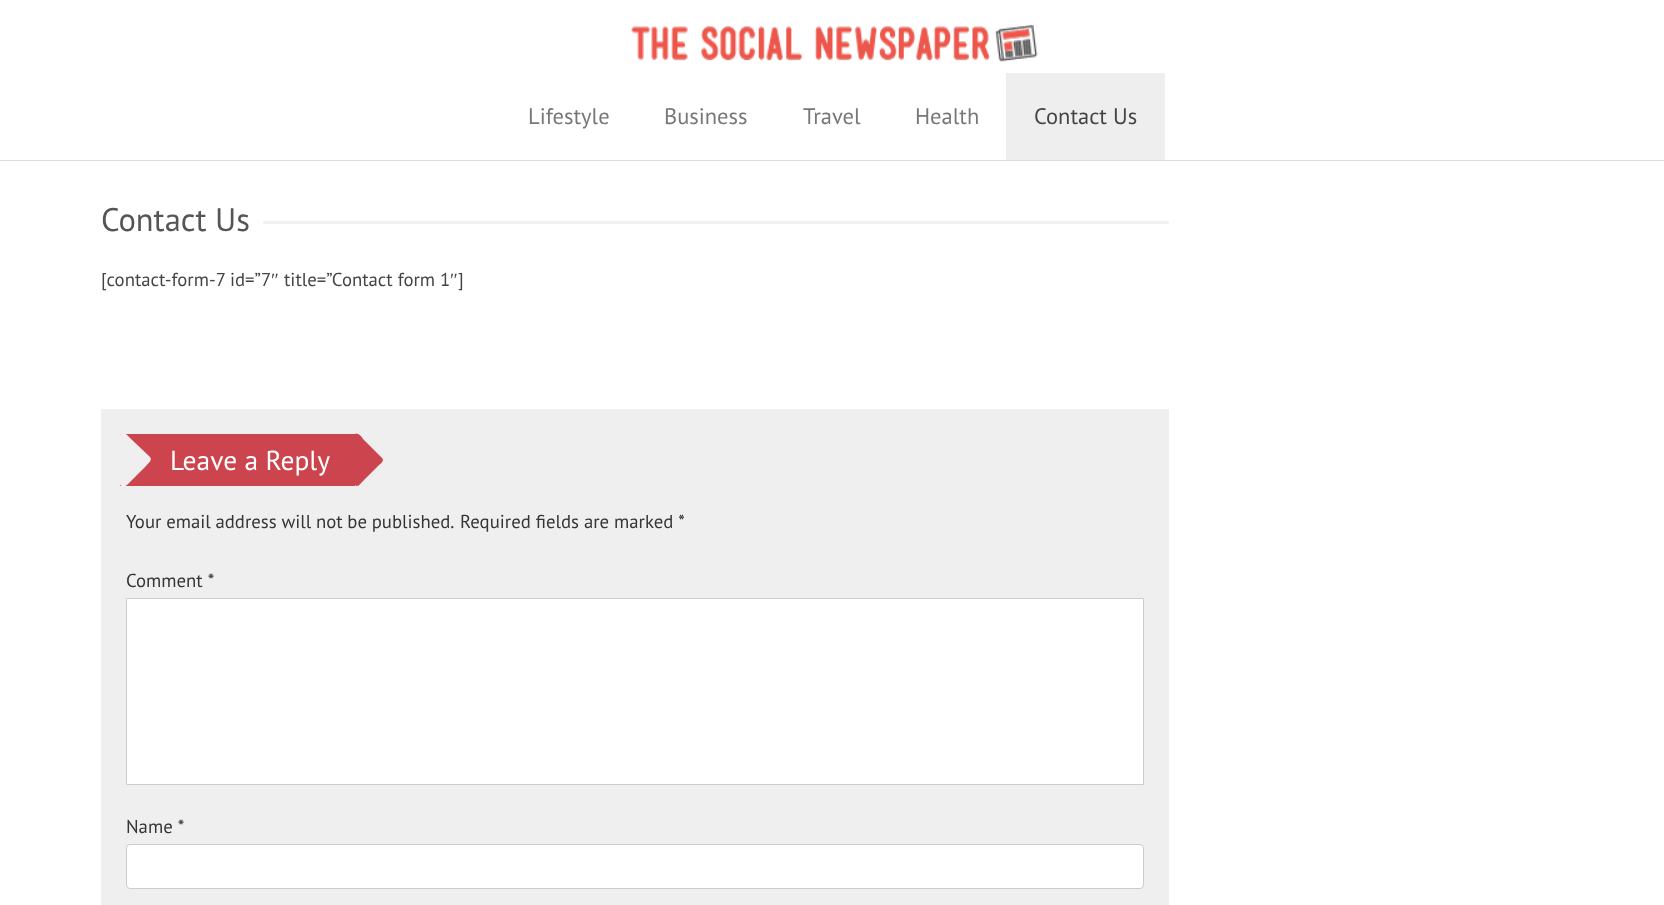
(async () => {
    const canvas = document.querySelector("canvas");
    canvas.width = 1664;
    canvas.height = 905;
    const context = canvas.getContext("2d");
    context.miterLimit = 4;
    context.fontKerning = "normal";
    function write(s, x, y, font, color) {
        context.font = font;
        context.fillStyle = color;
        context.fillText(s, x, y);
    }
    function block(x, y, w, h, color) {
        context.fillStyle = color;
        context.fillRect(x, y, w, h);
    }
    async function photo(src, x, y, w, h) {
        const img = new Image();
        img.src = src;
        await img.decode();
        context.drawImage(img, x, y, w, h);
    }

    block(0, 0, 1664, 905, "rgb(255, 255, 255)");
    block(0, 160, 1664, 1, "rgb(221, 221, 221)");
    await photo("media/1.png", 631, 24, 407, 38);
    write("Lifestyle", 528, 124, "22.5px PT Sans", "rgb(119, 119, 119)");
    write("Business", 664, 124, "22.5px PT Sans", "rgb(119, 119, 119)");
    write("Travel", 803, 124, "22.5px PT Sans", "rgb(119, 119, 119)");
    write("Health", 915, 124, "22.5px PT Sans", "rgb(119, 119, 119)");
    block(1006, 73, 159, 87, "rgb(238, 238, 238)");
    write("Contact Us", 1034, 124, "22.5px PT Sans", "rgb(68, 68, 68)");
    write("Contact Us", 101, 231, "32.5px PT Sans", "rgb(85, 85, 85)");
    block(263, 221, 906, 3, "rgb(241, 241, 241)");
    write("[contact-form-7 id=”7", 101, 286, "18.75px PT Sans", "rgb(68, 68, 68)");
    write("″", 271, 286, "18.75px Liberation Serif", "rgb(68, 68, 68)");
    write("title=”Contact form 1", 284, 286, "18.75px PT Sans", "rgb(68, 68, 68)");
    write("″", 450, 286, "18.75px Liberation Serif", "rgb(68, 68, 68)");
    write("]", 458, 286, "18.75px PT Sans", "rgb(68, 68, 68)");
    block(101, 409, 1068, 496, "rgb(239, 239, 239)");
    block(120, 434, 235, 52, "rgb(204, 68, 77)");
    context.fillStyle = "rgb(239, 239, 239)";
    context.beginPath();
    context.moveTo(150, 457);
    context.bezierCurveTo(153, 461, 147, 464, 146, 466);
    context.lineTo(130, 482);
    context.bezierCurveTo(128, 484, 124, 489, 121, 486);
    context.bezierCurveTo(119, 484, 120, 477, 120, 476);
    context.lineTo(120, 435);
    context.bezierCurveTo(122, 429, 128, 436, 130, 438);
    context.closePath();
    context.fill();
    write("Leave a Reply", 170, 470, "27.5px PT Sans", "rgb(255, 255, 255)");
    context.fillStyle = "rgb(204, 68, 77)";
    context.beginPath();
    context.moveTo(382, 458);
    context.bezierCurveTo(385, 461, 380, 464, 378, 466);
    context.lineTo(363, 481);
    context.bezierCurveTo(361, 483, 358, 488, 355, 485);
    context.bezierCurveTo(353, 483, 354, 476, 354, 475);
    context.lineTo(354, 436);
    context.bezierCurveTo(356, 430, 362, 437, 363, 439);
    context.closePath();
    context.fill();
    context.wordSpacing = "-0.25px";
    write("Your email address will not be published.", 126, 528, "18.75px PT Sans", "rgb(53, 53, 53)");
    context.wordSpacing = "0px";
    write("Required fields are marked *", 460, 528, "18.75px PT Sans", "rgb(53, 53, 53)");
    write("Comment *", 126, 587, "18.75px PT Sans", "rgb(53, 53, 53)");
    context.fillStyle = "rgb(255, 255, 255)";
    context.beginPath();
    context.rect(126.5, 598.5, 1017, 186);
    context.fill();
    context.strokeStyle = "rgb(204, 204, 204)";
    context.stroke();
    write("Name *", 126, 833, "18.75px PT Sans", "rgb(53, 53, 53)");
    context.fillStyle = "rgb(255, 255, 255)";
    context.beginPath();
    context.roundRect(126.5, 844.5, 1017, 44, 3.5);
    context.fill();
    context.stroke();
})();
